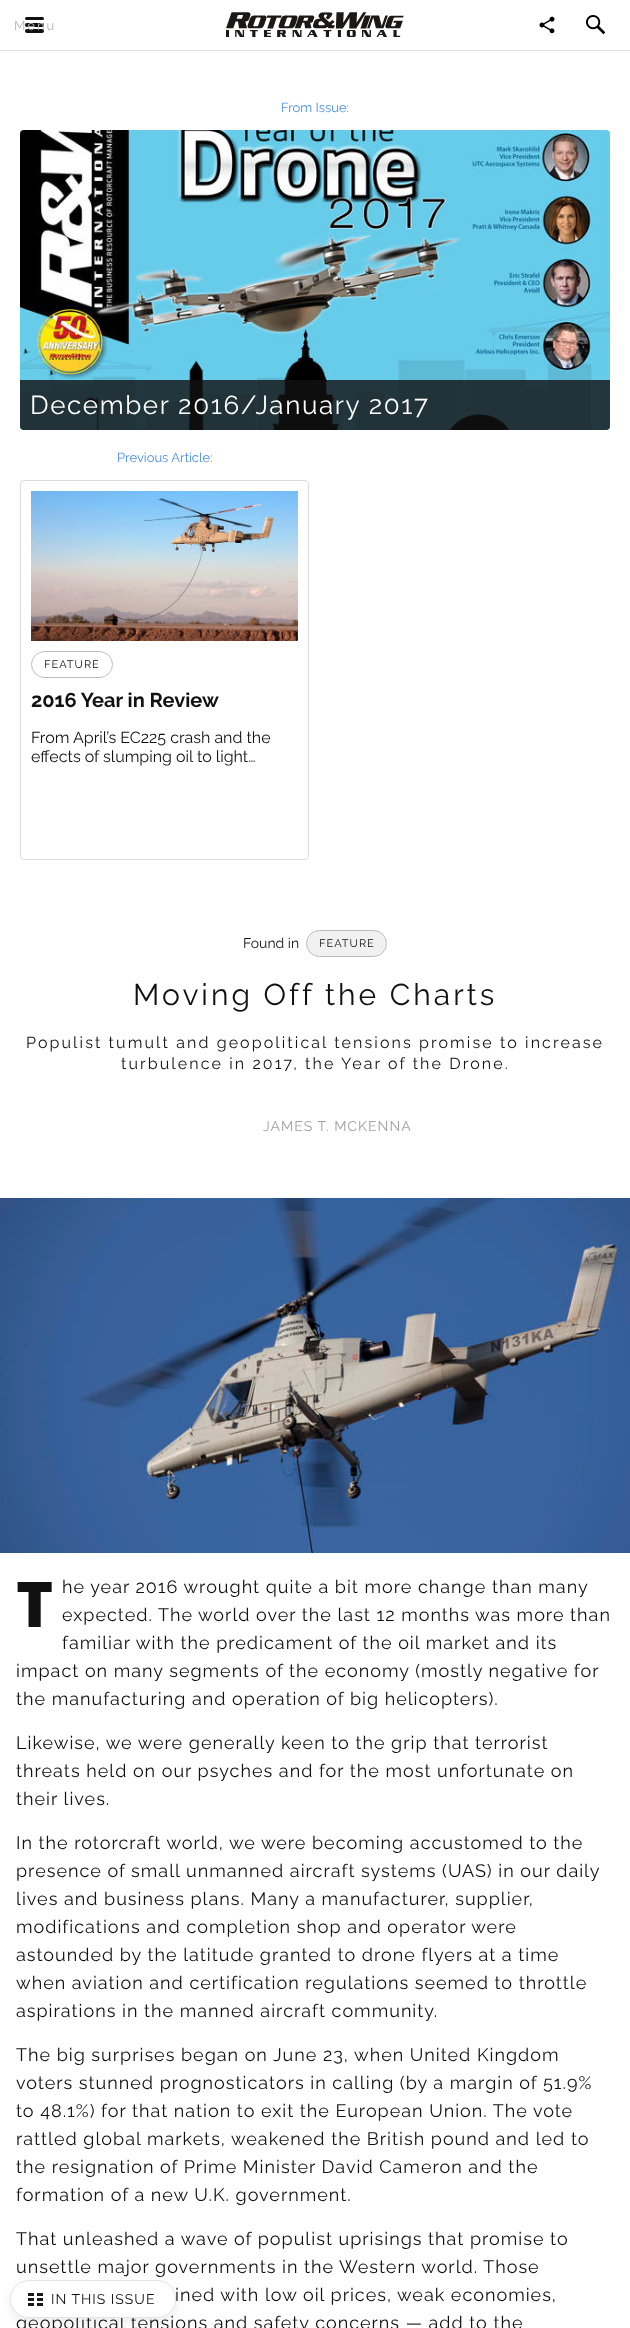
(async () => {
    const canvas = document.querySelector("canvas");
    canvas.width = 630;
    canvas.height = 2328;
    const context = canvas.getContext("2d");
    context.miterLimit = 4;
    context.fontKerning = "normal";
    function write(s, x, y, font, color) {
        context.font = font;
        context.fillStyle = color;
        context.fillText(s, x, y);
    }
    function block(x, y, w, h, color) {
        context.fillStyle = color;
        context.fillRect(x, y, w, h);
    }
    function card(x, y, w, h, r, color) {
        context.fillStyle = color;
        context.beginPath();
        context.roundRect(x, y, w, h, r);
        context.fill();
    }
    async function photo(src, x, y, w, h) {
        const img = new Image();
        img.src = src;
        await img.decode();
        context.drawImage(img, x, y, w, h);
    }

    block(0, 0, 630, 2328, "rgb(255, 255, 255)");
    block(0, 50, 630, 1, "rgb(220, 220, 220)");
    card(25, 17, 19, 3, 1.5, "rgb(17, 17, 17)");
    card(25, 23, 19, 4, 2, "rgb(17, 17, 17)");
    card(25, 29, 19, 4, 2, "rgb(17, 17, 17)");
    context.letterSpacing = "2px";
    write("Menu", 14, 30, "13px Raleway", "rgb(183, 183, 183)");
    await photo("media/1.png", 226, 12, 178, 25);
    await photo("media/2.png", 539, 16, 16, 18);
    await photo("media/3.png", 586, 15, 20, 19);
    context.letterSpacing = "0px";
    write("From Issue:", 281, 112, "13px Raleway", "rgb(76, 143, 232)");
    await photo("media/4.png", 20, 130, 590, 300);
    context.fillStyle = "rgba(17, 17, 17, 0.8)";
    context.beginPath();
    context.roundRect(20, 380, 590, 50, [0, 0, 4, 4]);
    context.fill();
    context.letterSpacing = "1.6px";
    write("December 2016/January 2017", 30, 414, "26px Raleway", "rgb(255, 255, 255)");
    context.letterSpacing = "0px";
    write("Previous Article:", 117, 462, "13px Raleway", "rgb(76, 143, 232)");
    context.beginPath();
    context.roundRect(20.5, 480.5, 288, 379, 3.5);
    context.strokeStyle = "rgb(220, 220, 220)";
    context.stroke();
    await photo("media/5.png", 31, 491, 267, 150);
    context.beginPath();
    context.roundRect(31.5, 651.5, 81, 26, 13);
    context.strokeStyle = "rgb(189, 189, 189)";
    context.stroke();
    context.letterSpacing = "1px";
    write("FEATURE", 44, 668, "11px Raleway", "rgb(17, 17, 17)");
    context.letterSpacing = "0px";
    write("2016 Year in Review", 31, 707, "bold 20px Raleway", "rgb(17, 17, 17)");
    write("From April’s EC225 crash and the", 31, 743, "16px Raleway", "rgb(17, 17, 17)");
    write("effects of slumping oil to light…", 31, 762, "16px Raleway", "rgb(17, 17, 17)");
    write("Found in", 243, 948, "14px Raleway", "rgb(17, 17, 17)");
    context.fillStyle = "rgb(241, 241, 241)";
    context.beginPath();
    context.roundRect(306.5, 930.5, 80, 26, 13);
    context.fill();
    context.stroke();
    context.letterSpacing = "1px";
    write("FEATURE", 319, 947, "11px Raleway", "rgb(17, 17, 17)");
    context.letterSpacing = "3px";
    write("Moving Off the Charts", 133, 1005, "30px Raleway", "rgb(17, 17, 17)");
    context.letterSpacing = "2.1px";
    write("Populist tumult and geopolitical tensions promise to increase", 26, 1048, "16px Raleway", "rgb(17, 17, 17)");
    write("turbulence in 2017, the Year of the Drone.", 121, 1069, "16px Raleway", "rgb(17, 17, 17)");
    context.letterSpacing = "1px";
    write("JAMES T. MCKENNA", 263, 1131, "14px Raleway", "rgb(161, 161, 161)");
    await photo("media/6.png", 0, 1198, 630, 355);
    write("T", 16, 1627, "900 63px Noto Sans", "rgb(17, 17, 17)");
    write("he year 2016 wrought quite a bit more change than many", 62, 1593, "18px Raleway", "rgb(17, 17, 17)");
    write("expected. The world over the last 12 months was more than", 62, 1621, "18px Raleway", "rgb(17, 17, 17)");
    write("familiar with the predicament of the oil market and its", 62, 1649, "18px Raleway", "rgb(17, 17, 17)");
    write("impact on many segments of the economy (mostly negative for", 16, 1677, "18px Raleway", "rgb(17, 17, 17)");
    write("the manufacturing and operation of big helicopters).", 16, 1705, "18px Raleway", "rgb(17, 17, 17)");
    write("Likewise, we were generally keen to the grip that terrorist", 16, 1749, "18px Raleway", "rgb(17, 17, 17)");
    write("threats held on our psyches and for the most unfortunate on", 16, 1777, "18px Raleway", "rgb(17, 17, 17)");
    write("their lives.", 16, 1805, "18px Raleway", "rgb(17, 17, 17)");
    write("In the rotorcraft world, we were becoming accustomed to the", 16, 1849, "18px Raleway", "rgb(17, 17, 17)");
    write("presence of small unmanned aircraft systems (UAS) in our daily", 16, 1877, "18px Raleway", "rgb(17, 17, 17)");
    write("lives and business plans. Many a manufacturer, supplier,", 16, 1905, "18px Raleway", "rgb(17, 17, 17)");
    write("modifications and completion shop and operator were", 16, 1933, "18px Raleway", "rgb(17, 17, 17)");
    write("astounded by the latitude granted to drone flyers at a time", 16, 1961, "18px Raleway", "rgb(17, 17, 17)");
    write("when aviation and certification regulations seemed to throttle", 16, 1989, "18px Raleway", "rgb(17, 17, 17)");
    write("aspirations in the manned aircraft community.", 16, 2017, "18px Raleway", "rgb(17, 17, 17)");
    write("The big surprises began on June 23, when United Kingdom", 16, 2061, "18px Raleway", "rgb(17, 17, 17)");
    write("voters stunned prognosticators in calling (by a margin of 51.9%", 16, 2089, "18px Raleway", "rgb(17, 17, 17)");
    write("to 48.1%) for that nation to exit the European Union. The vote", 16, 2117, "18px Raleway", "rgb(17, 17, 17)");
    write("rattled global markets, weakened the British pound and led to", 16, 2145, "18px Raleway", "rgb(17, 17, 17)");
    write("the resignation of Prime Minister David Cameron and the", 16, 2173, "18px Raleway", "rgb(17, 17, 17)");
    write("formation of a new U.K. government.", 16, 2201, "18px Raleway", "rgb(17, 17, 17)");
    write("That unleashed a wave of populist uprisings that promise to", 16, 2245, "18px Raleway", "rgb(17, 17, 17)");
    write("unsettle major governments in the Western world. Those", 16, 2273, "18px Raleway", "rgb(17, 17, 17)");
    write("ined with low oil prices, weak economies,", 175, 2301, "18px Raleway", "rgb(17, 17, 17)");
    write("geopolitical tensions and safety concerns — add to the", 16, 2329, "18px Raleway", "rgb(17, 17, 17)");
    context.fillStyle = "rgba(0, 0, 0, 0.08)";
    context.filter = "blur(5px)";
    context.beginPath();
    context.roundRect(10, 2284, 166, 38, 19);
    context.fill();
    context.filter = "none";
    card(10, 2280, 166, 38, 19, "rgb(255, 255, 255)");
    await photo("media/7.png", 28, 2293, 15, 13);
    context.beginPath();
    context.roundRect(10.5, 2280.5, 165, 37, 18.5);
    context.strokeStyle = "rgb(228, 228, 228)";
    context.stroke();
    write("IN THIS ISSUE", 51, 2304, "14px Raleway", "rgb(17, 17, 17)");
})();
